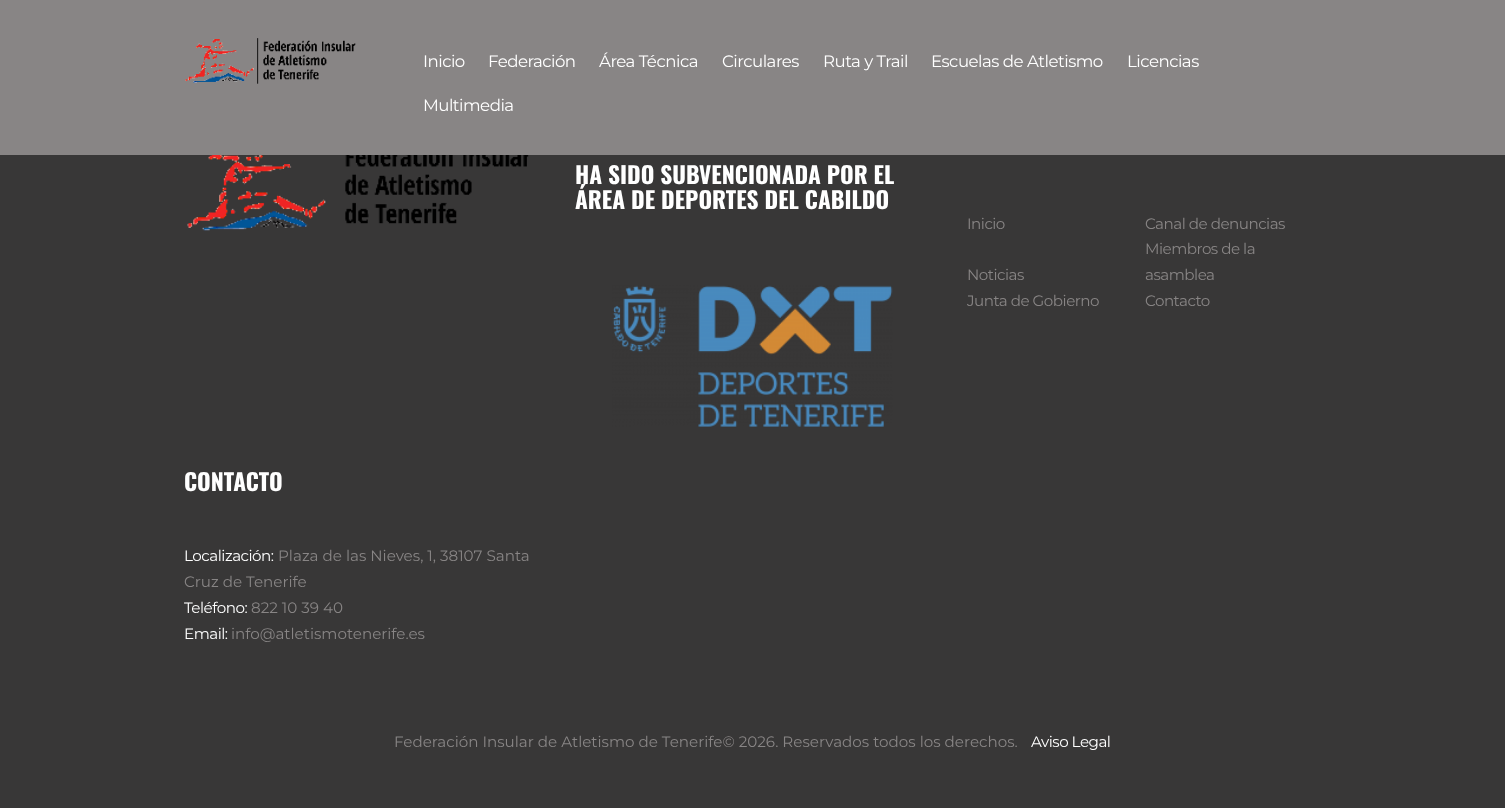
(async () => {
    const canvas = document.querySelector("canvas");
    canvas.width = 1505;
    canvas.height = 808;
    const context = canvas.getContext("2d");
    context.miterLimit = 4;
    context.fontKerning = "normal";
    function write(s, x, y, font, color) {
        context.font = font;
        context.fillStyle = color;
        context.fillText(s, x, y);
    }
    function block(x, y, w, h, color) {
        context.fillStyle = color;
        context.fillRect(x, y, w, h);
    }
    async function photo(src, x, y, w, h) {
        const img = new Image();
        img.src = src;
        await img.decode();
        context.drawImage(img, x, y, w, h);
    }

    block(0, 0, 1505, 808, "rgb(56, 55, 55)");
    block(0, 0, 1505, 155, "rgb(136, 133, 133)");
    await photo("media/1.png", 185, 38, 171, 46);
    context.letterSpacing = "-0.5px";
    write("Inicio", 423, 67, "16.6px Montserrat", "rgb(255, 255, 255)");
    write("Federación", 488, 67, "16.6px Montserrat", "rgb(255, 255, 255)");
    write("Área Técnica", 599, 67, "16.6px Montserrat", "rgb(255, 255, 255)");
    write("Circulares", 722, 67, "16.6px Montserrat", "rgb(255, 255, 255)");
    write("Ruta y Trail", 823, 67, "16.6px Montserrat", "rgb(255, 255, 255)");
    write("Escuelas de Atletismo", 931, 67, "16.6px Montserrat", "rgb(255, 255, 255)");
    write("Licencias", 1127, 67, "16.6px Montserrat", "rgb(255, 255, 255)");
    write("Multimedia", 423, 111, "16.6px Montserrat", "rgb(255, 255, 255)");
    await photo("media/2.png", 187, 155, 342, 76);
    context.letterSpacing = "0px";
    write("HA SIDO SUBVENCIONADA POR EL", 575, 184, "bold 23.3px Oswald", "rgb(255, 255, 255)");
    write("ÁREA DE DEPORTES DEL CABILDO", 575, 209, "bold 23.3px Oswald", "rgb(255, 255, 255)");
    await photo("media/3.png", 612, 285, 281, 142);
    context.letterSpacing = "-0.5px";
    write("Inicio", 967, 229, "15.15px Montserrat", "rgb(136, 133, 133)");
    write("Canal de denuncias", 1145, 229, "15.15px Montserrat", "rgb(136, 133, 133)");
    write("Noticias", 967, 280, "15.15px Montserrat", "rgb(136, 133, 133)");
    write("Miembros de la", 1145, 254, "15.15px Montserrat", "rgb(136, 133, 133)");
    write("asamblea", 1145, 280, "15.15px Montserrat", "rgb(136, 133, 133)");
    write("Junta de Gobierno", 967, 306, "15.15px Montserrat", "rgb(136, 133, 133)");
    write("Contacto", 1145, 306, "15.15px Montserrat", "rgb(136, 133, 133)");
    context.letterSpacing = "0px";
    write("CONTACTO", 184, 491, "bold 23.3px Oswald", "rgb(255, 255, 255)");
    context.letterSpacing = "-0.5px";
    write("Localización:", 184, 561, "15.15px Montserrat", "rgb(255, 255, 255)");
    context.letterSpacing = "0px";
    write("Plaza de las Nieves, 1, 38107 Santa", 278, 561, "15.15px Montserrat", "rgb(136, 133, 133)");
    write("Cruz de Tenerife", 184, 587, "15.15px Montserrat", "rgb(136, 133, 133)");
    context.letterSpacing = "-0.5px";
    write("Teléfono:", 184, 613, "15.15px Montserrat", "rgb(255, 255, 255)");
    context.letterSpacing = "0px";
    write("822 10 39 40", 251, 613, "15.15px Montserrat", "rgb(136, 133, 133)");
    context.letterSpacing = "-0.5px";
    write("Email:", 184, 639, "15.15px Montserrat", "rgb(255, 255, 255)");
    context.letterSpacing = "0px";
    write("info@atletismotenerife.es", 231, 639, "15.15px Montserrat", "rgb(136, 133, 133)");
    write("Federación Insular de Atletismo de Tenerife© 2026. Reservados todos los derechos.", 394, 747, "15.15px Montserrat", "rgb(136, 133, 133)");
    context.letterSpacing = "-0.5px";
    write("Aviso Legal", 1031, 747, "15.15px Montserrat", "rgb(255, 255, 255)");
})();
